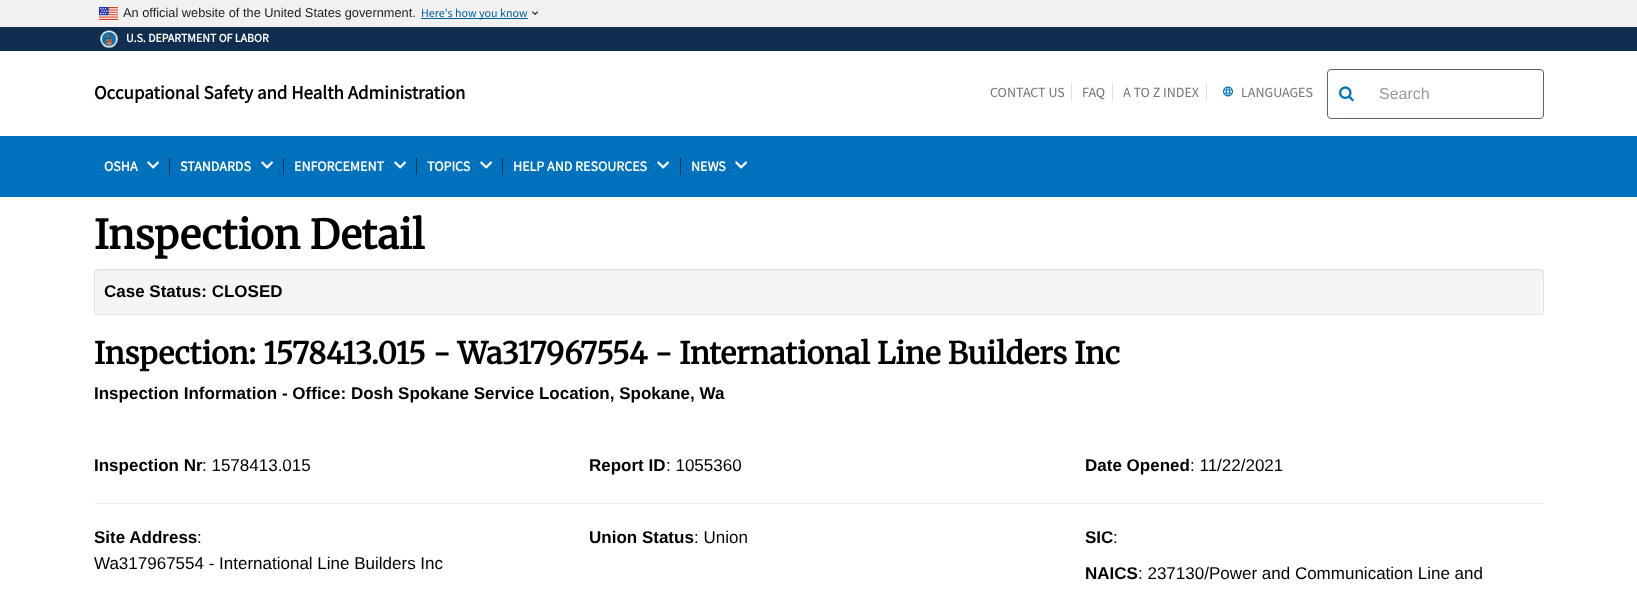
(async () => {
    const canvas = document.querySelector("canvas");
    canvas.width = 1637;
    canvas.height = 589;
    const context = canvas.getContext("2d");
    context.miterLimit = 4;
    context.fontKerning = "normal";
    function write(s, x, y, font, color) {
        context.font = font;
        context.fillStyle = color;
        context.fillText(s, x, y);
    }
    function block(x, y, w, h, color) {
        context.fillStyle = color;
        context.fillRect(x, y, w, h);
    }
    function card(x, y, w, h, r, color) {
        context.fillStyle = color;
        context.beginPath();
        context.roundRect(x, y, w, h, r);
        context.fill();
    }
    async function photo(src, x, y, w, h) {
        const img = new Image();
        img.src = src;
        await img.decode();
        context.drawImage(img, x, y, w, h);
    }

    block(0, 0, 1637, 589, "rgb(255, 255, 255)");
    block(0, 0, 1637, 27, "rgb(241, 241, 241)");
    await photo("media/1.png", 99, 7, 19, 13);
    write("An official website of the United States government.", 123, 17, "12.8px Liberation Sans", "rgb(27, 27, 27)");
    await photo("media/2.png", 532, 11, 6, 4);
    block(421, 18, 107, 1, "rgb(0, 94, 162)");
    write("Here's how you know", 421, 17, "12px Source Sans Pro", "rgb(0, 94, 162)");
    block(0, 27, 1637, 24, "rgb(17, 46, 81)");
    await photo("media/3.png", 100, 30, 18, 18);
    write("U.S. DEPARTMENT OF LABOR", 126, 42, "bold 11.9px Source Sans Pro", "rgb(255, 255, 255)");
    write("Occupational Safety and Health Administration", 94, 99, "bold 19px Source Sans Pro", "rgb(0, 0, 0)");
    write("CONTACT US", 990, 97, "14px Source Sans Pro", "rgb(113, 118, 122)");
    block(1071, 83, 1, 18, "rgb(223, 225, 226)");
    write("FAQ", 1082, 97, "14px Source Sans Pro", "rgb(113, 118, 122)");
    block(1112, 83, 1, 18, "rgb(223, 225, 226)");
    write("A TO Z INDEX", 1123, 97, "14px Source Sans Pro", "rgb(113, 118, 122)");
    block(1206, 83, 1, 18, "rgb(223, 225, 226)");
    await photo("media/4.png", 1223, 86, 10, 11);
    write("LANGUAGES", 1241, 97, "14px Source Sans Pro", "rgb(113, 118, 122)");
    context.beginPath();
    context.roundRect(1327.5, 69.5, 216, 49, 3.5);
    context.strokeStyle = "rgb(91, 97, 107)";
    context.stroke();
    block(1327, 70, 4, 1, "rgba(255, 255, 255, 0.2)");
    await photo("media/5.png", 1339, 86, 15, 16);
    write("Search", 1379, 99, "16px Liberation Sans", "rgb(153, 153, 153)");
    block(0, 136, 1637, 61, "rgb(0, 113, 188)");
    write("OSHA", 104, 171, "bold 14px Source Sans Pro", "rgb(255, 255, 255)");
    await photo("media/6.png", 147, 161, 12, 8);
    block(169, 158, 1, 17, "rgb(17, 46, 81)");
    write("STANDARDS", 180, 171, "bold 14px Source Sans Pro", "rgb(255, 255, 255)");
    await photo("media/6.png", 261, 161, 12, 8);
    block(283, 158, 1, 17, "rgb(17, 46, 81)");
    write("ENFORCEMENT", 294, 171, "bold 14px Source Sans Pro", "rgb(255, 255, 255)");
    await photo("media/6.png", 394, 161, 12, 8);
    block(416, 158, 1, 17, "rgb(17, 46, 81)");
    write("TOPICS", 427, 171, "bold 14px Source Sans Pro", "rgb(255, 255, 255)");
    await photo("media/6.png", 480, 161, 12, 8);
    block(502, 158, 1, 17, "rgb(17, 46, 81)");
    write("HELP AND RESOURCES", 513, 171, "bold 14px Source Sans Pro", "rgb(255, 255, 255)");
    await photo("media/6.png", 657, 161, 12, 8);
    block(680, 158, 1, 17, "rgb(17, 46, 81)");
    write("NEWS", 691, 171, "bold 14px Source Sans Pro", "rgb(255, 255, 255)");
    await photo("media/6.png", 735, 161, 12, 8);
    write("Inspection Detail", 94, 249, "bold 40px Merriweather", "rgb(0, 0, 0)");
    card(94, 269, 1450, 46, 3, "rgb(245, 245, 245)");
    context.fillStyle = "rgb(233, 233, 233)";
    context.beginPath();
    context.moveTo(97, 271);
    context.lineTo(1541, 271);
    context.bezierCurveTo(1542, 271, 1543, 272, 1543, 273);
    context.lineTo(1543, 272);
    context.bezierCurveTo(1543, 271, 1542, 270, 1541, 270);
    context.lineTo(97, 270);
    context.bezierCurveTo(96, 270, 95, 271, 95, 272);
    context.lineTo(95, 273);
    context.bezierCurveTo(95, 272, 96, 271, 97, 271);
    context.closePath();
    context.fill();
    context.beginPath();
    context.roundRect(94.5, 269.5, 1449, 45, 2.5);
    context.strokeStyle = "rgb(227, 227, 227)";
    context.stroke();
    write("Case Status: CLOSED", 104, 297, "bold 17px Liberation Sans", "rgb(0, 0, 0)");
    write("Inspection: 1578413.015 - Wa317967554 - International Line Builders Inc", 94, 364, "bold 30px Merriweather", "rgb(0, 0, 0)");
    write("Inspection Information - Office: Dosh Spokane Service Location, Spokane, Wa", 94, 399, "bold 17px Liberation Sans", "rgb(0, 0, 0)");
    write("Inspection Nr", 94, 471, "bold 17px Liberation Sans", "rgb(0, 0, 0)");
    write(": 1578413.015", 202, 471, "17px Liberation Sans", "rgb(0, 0, 0)");
    write("Report ID", 589, 471, "bold 17px Liberation Sans", "rgb(0, 0, 0)");
    write(": 1055360", 666, 471, "17px Liberation Sans", "rgb(0, 0, 0)");
    write("Date Opened", 1085, 471, "bold 17px Liberation Sans", "rgb(0, 0, 0)");
    write(": 11/22/2021", 1190, 471, "17px Liberation Sans", "rgb(0, 0, 0)");
    block(94, 503, 1450, 1, "rgb(238, 238, 238)");
    write("Site Address", 94, 543, "bold 17px Liberation Sans", "rgb(0, 0, 0)");
    write(":", 197, 543, "17px Liberation Sans", "rgb(0, 0, 0)");
    write("Wa317967554 - International Line Builders Inc", 94, 569, "17px Liberation Sans", "rgb(0, 0, 0)");
    write("Union Status", 589, 543, "bold 17px Liberation Sans", "rgb(0, 0, 0)");
    write(": Union", 694, 543, "17px Liberation Sans", "rgb(0, 0, 0)");
    write("SIC", 1085, 543, "bold 17px Liberation Sans", "rgb(0, 0, 0)");
    write(":", 1113, 543, "17px Liberation Sans", "rgb(0, 0, 0)");
    write("NAICS", 1085, 579, "bold 17px Liberation Sans", "rgb(0, 0, 0)");
    write(": 237130/Power and Communication Line and", 1138, 579, "17px Liberation Sans", "rgb(0, 0, 0)");
})();
